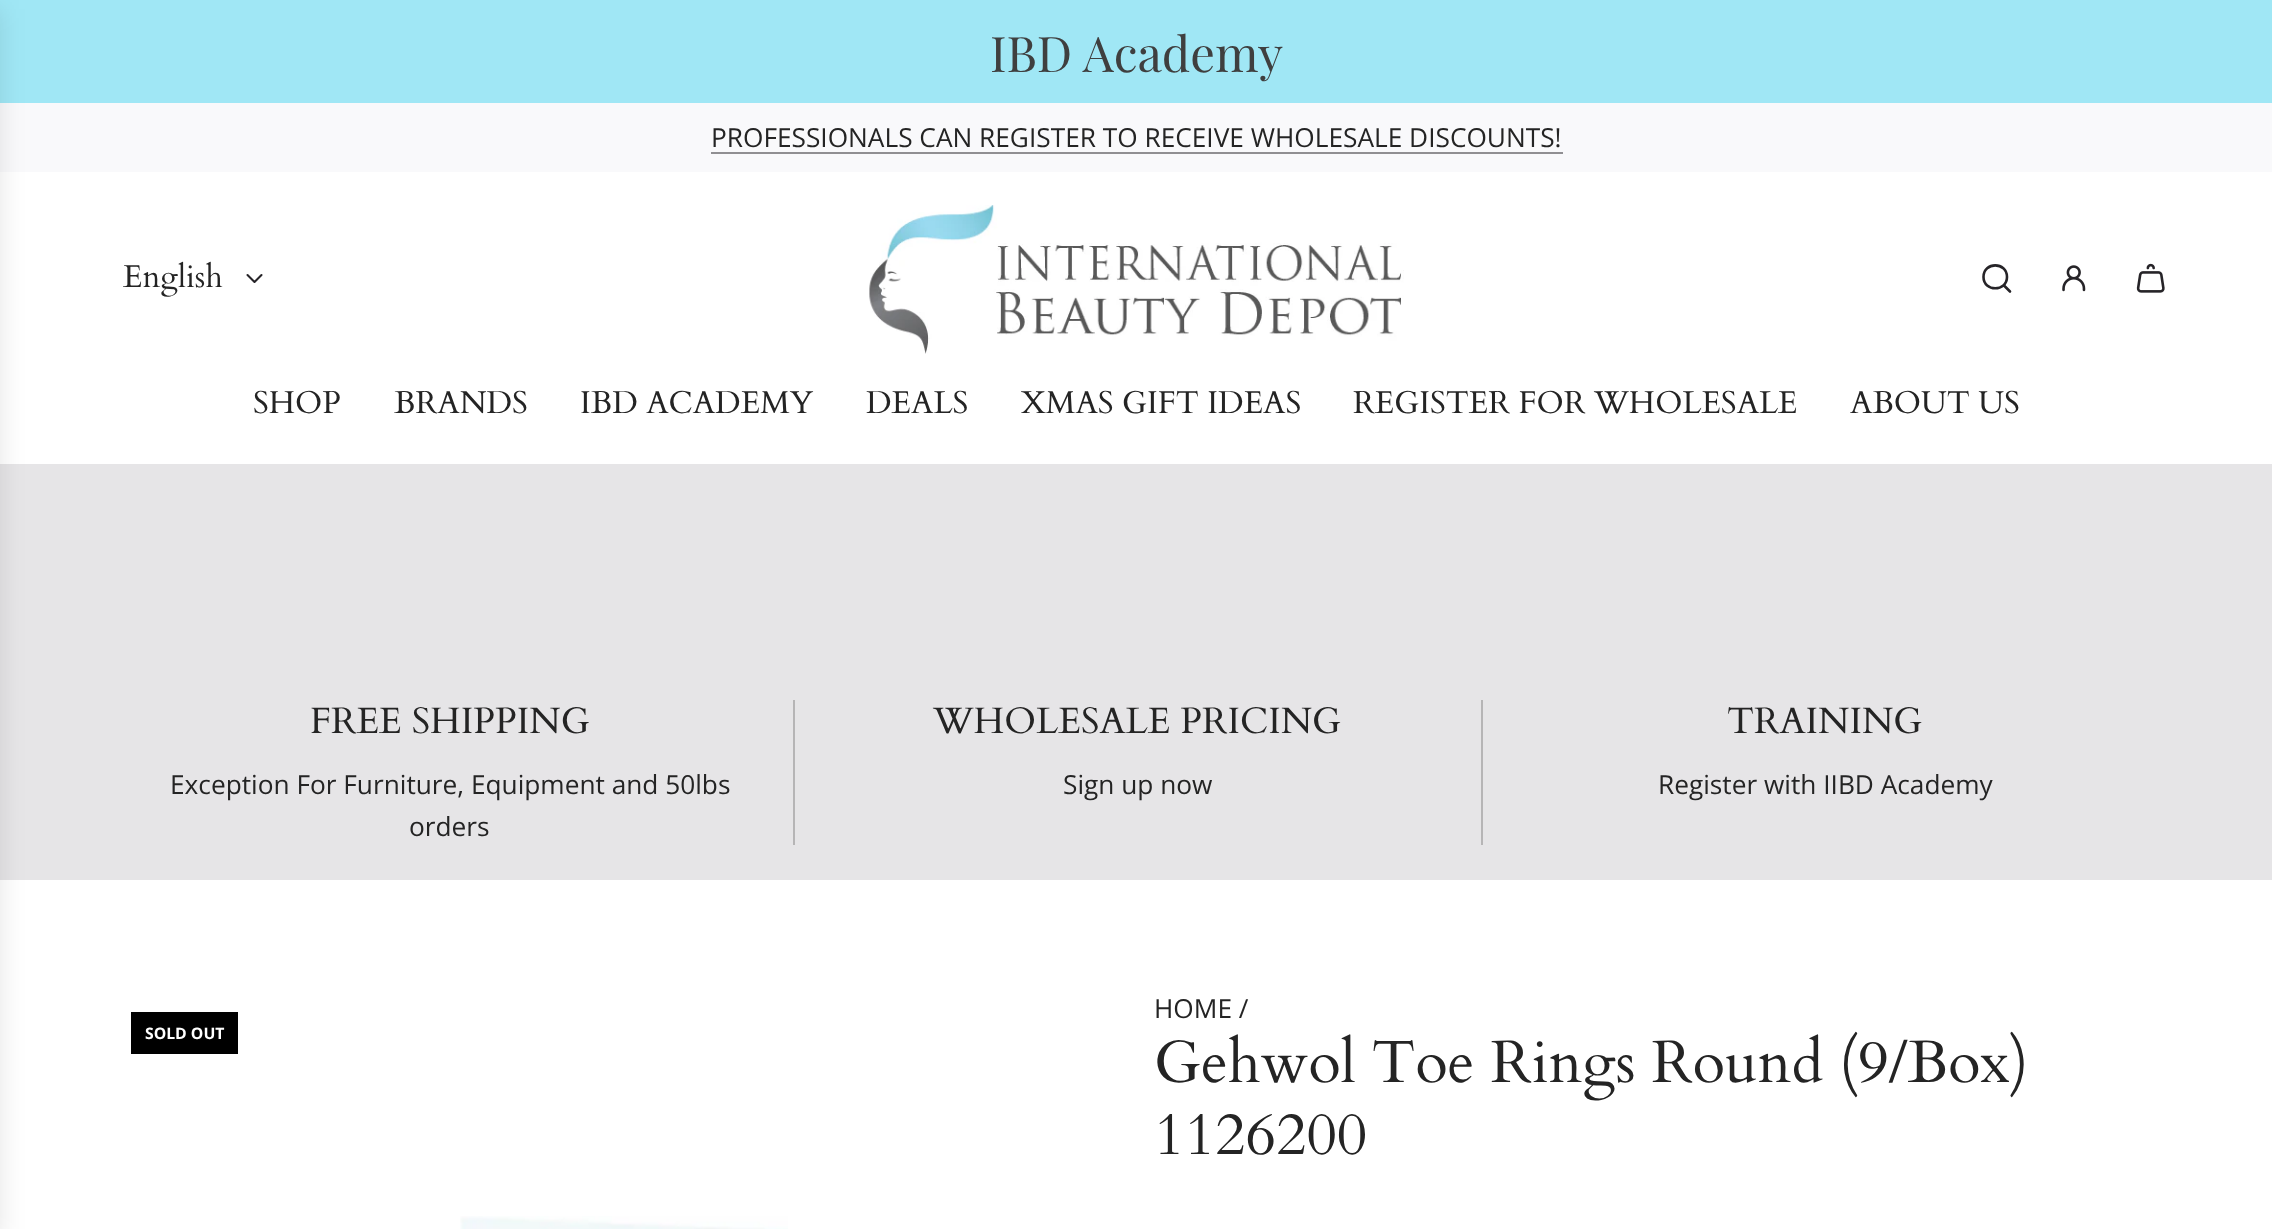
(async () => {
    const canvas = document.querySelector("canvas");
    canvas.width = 2272;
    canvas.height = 1229;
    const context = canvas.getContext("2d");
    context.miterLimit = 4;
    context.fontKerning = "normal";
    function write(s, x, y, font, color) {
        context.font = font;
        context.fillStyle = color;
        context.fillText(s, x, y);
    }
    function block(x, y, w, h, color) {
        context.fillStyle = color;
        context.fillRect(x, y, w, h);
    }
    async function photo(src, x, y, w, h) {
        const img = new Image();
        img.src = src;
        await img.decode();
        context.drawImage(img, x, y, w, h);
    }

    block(0, 0, 2272, 1229, "rgb(255, 255, 255)");
    block(0, 0, 2272, 103, "rgb(160, 231, 245)");
    write("IBD Academy", 990, 72, "49px Playfair Display", "rgb(63, 63, 63)");
    block(0, 103, 2272, 69, "rgb(249, 249, 251)");
    write("PROFESSIONALS CAN REGISTER TO RECEIVE WHOLESALE DISCOUNTS!", 711, 147, "26.25px Open Sans", "rgb(36, 36, 36)");
    block(711, 152, 852, 2, "rgb(144, 143, 146)");
    block(0, 464, 2272, 416, "rgb(230, 229, 231)");
    context.fillStyle = "rgba(0, 0, 0, 0.1)";
    context.filter = "blur(13px)";
    context.beginPath();
    context.rect(-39, 9, 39, 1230);
    context.fill();
    context.filter = "none";
    write("English", 123, 287, "31.5px Cardo", "rgb(36, 36, 36)");
    context.beginPath();
    context.moveTo(247.5, 275);
    context.lineTo(254.5, 282);
    context.lineTo(261.5, 275);
    context.strokeStyle = "rgb(38, 36, 40)";
    context.lineWidth = 2.1;
    context.lineCap = "round";
    context.lineJoin = "round";
    context.stroke();
    await photo("media/1.png", 869, 205, 535, 149);
    context.beginPath();
    context.moveTo(2004, 285.5);
    context.lineTo(2010, 291.5);
    context.moveTo(1983.5, 277);
    context.bezierCurveTo(1983.5, 292, 2007, 292, 2007, 277);
    context.bezierCurveTo(2007, 261.5, 1983.5, 261.5, 1983.5, 277);
    context.closePath();
    context.lineWidth = 2.6;
    context.stroke();
    await photo("media/2.png", 2062, 265, 24, 27);
    await photo("media/3.png", 2136, 263, 29, 30);
    write("SHOP", 253, 413, "31.5px Cardo", "rgb(36, 36, 36)");
    write("BRANDS", 394, 413, "31.5px Cardo", "rgb(36, 36, 36)");
    write("IBD ACADEMY", 580, 413, "31.5px Cardo", "rgb(36, 36, 36)");
    write("DEALS", 866, 413, "31.5px Cardo", "rgb(36, 36, 36)");
    write("XMAS GIFT IDEAS", 1021, 413, "31.5px Cardo", "rgb(36, 36, 36)");
    write("REGISTER FOR WHOLESALE", 1353, 413, "31.5px Cardo", "rgb(36, 36, 36)");
    write("ABOUT US", 1850, 413, "31.5px Cardo", "rgb(36, 36, 36)");
    write("FREE SHIPPING", 310, 733, "36.75px Cardo", "rgb(36, 36, 36)");
    write("Exception For Furniture, Equipment and 50lbs", 170, 794, "26.25px Open Sans", "rgb(36, 36, 36)");
    write("orders", 409, 836, "26.25px Open Sans", "rgb(36, 36, 36)");
    block(793, 700, 2, 145, "rgb(182, 181, 182)");
    write("WHOLESALE PRICING", 933, 733, "36.75px Cardo", "rgb(36, 36, 36)");
    write("Sign up now", 1063, 794, "26.25px Open Sans", "rgb(36, 36, 36)");
    block(1481, 700, 2, 145, "rgb(182, 181, 182)");
    write("TRAINING", 1727, 733, "36.75px Cardo", "rgb(36, 36, 36)");
    write("Register with IIBD Academy", 1658, 794, "26.25px Open Sans", "rgb(36, 36, 36)");
    block(131, 1012, 107, 42, "rgb(0, 0, 0)");
    write("SOLD OUT", 145, 1039, "bold 15.75px Open Sans", "rgb(255, 255, 255)");
    await photo("media/4.png", 460, 1216, 328, 13);
    write("HOME /", 1154, 1018, "26.25px Open Sans", "rgb(36, 36, 36)");
    write("Gehwol Toe Rings Round (9/Box)", 1154, 1082, "59.5px Cardo", "rgb(36, 36, 36)");
    write("1126200", 1154, 1154, "59.5px Cardo", "rgb(36, 36, 36)");
})();
